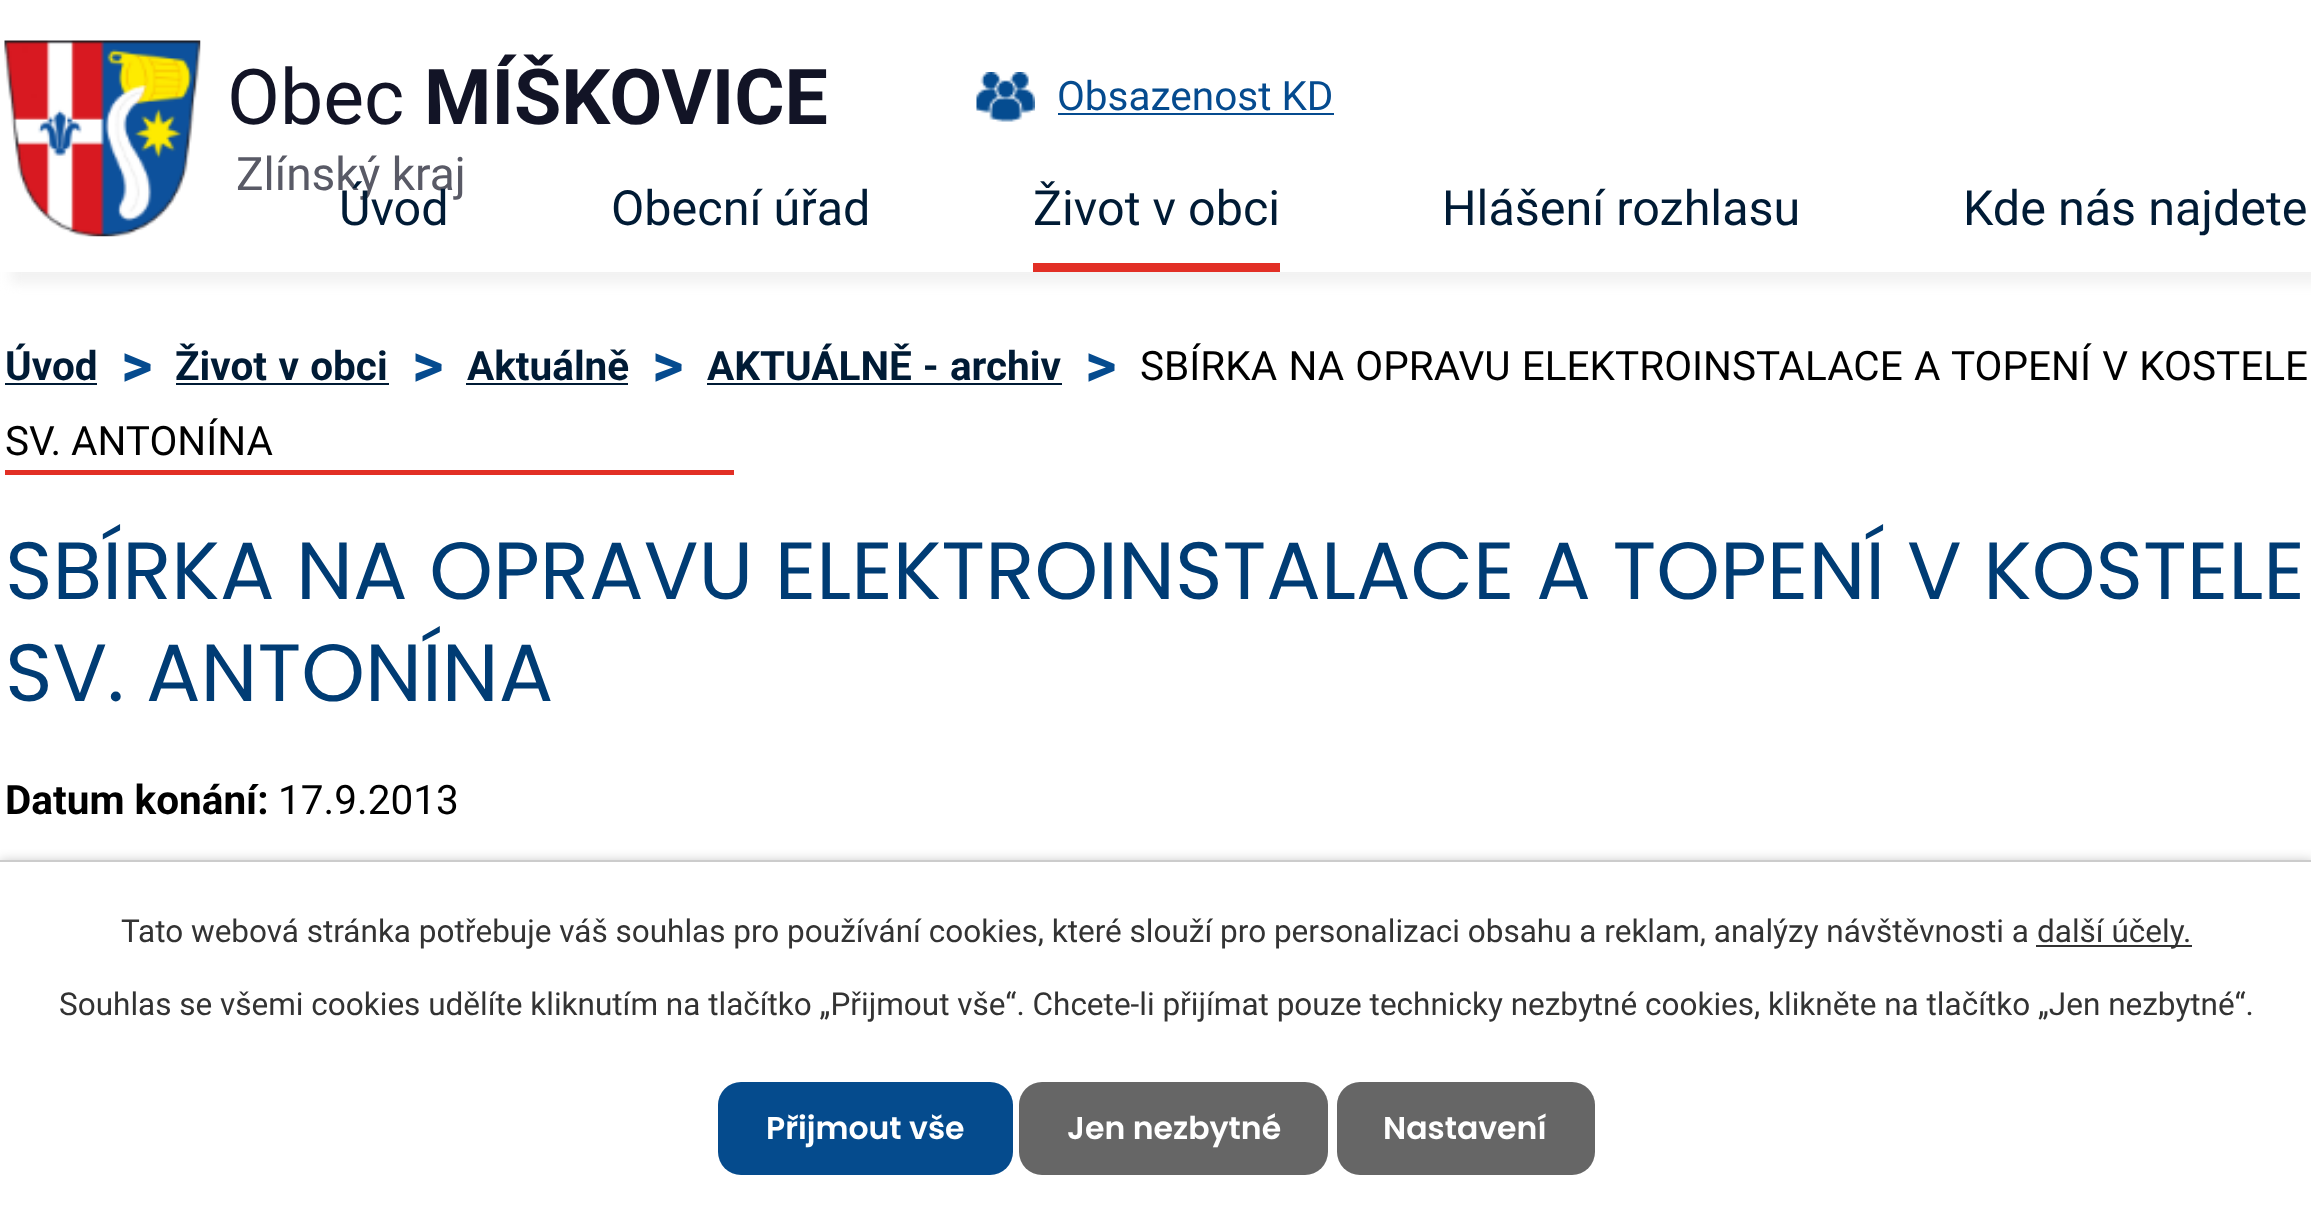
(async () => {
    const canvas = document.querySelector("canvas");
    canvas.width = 2311;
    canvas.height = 1227;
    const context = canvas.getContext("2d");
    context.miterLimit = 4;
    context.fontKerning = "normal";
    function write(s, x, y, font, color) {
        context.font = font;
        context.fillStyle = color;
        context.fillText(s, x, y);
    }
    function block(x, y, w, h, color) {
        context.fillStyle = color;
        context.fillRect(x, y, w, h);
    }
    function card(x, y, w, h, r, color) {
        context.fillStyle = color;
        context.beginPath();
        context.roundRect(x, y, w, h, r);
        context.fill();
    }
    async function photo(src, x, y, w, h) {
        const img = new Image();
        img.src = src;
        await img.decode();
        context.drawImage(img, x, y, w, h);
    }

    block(0, 0, 2311, 1227, "rgb(255, 255, 255)");
    context.save();
    context.beginPath();
    context.rect(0, 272, 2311, 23);
    context.clip();
    context.fillStyle = "rgb(242, 242, 242)";
    context.filter = "blur(5.5px)";
    context.beginPath();
    context.rect(11, 11, 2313, 273);
    context.fill();
    context.filter = "none";
    context.restore();
    await photo("media/1.png", 4, 40, 197, 197);
    write("Obec", 227, 124, "77px Roboto", "rgb(18, 20, 38)");
    write("MÍŠKOVICE", 424, 124, "bold 77px Roboto", "rgb(18, 20, 38)");
    write("Zlínský kraj", 236, 190, "46px Roboto", "rgb(89, 90, 102)");
    await photo("media/2.png", 976, 72, 59, 50);
    write("Obsazenost KD", 1057, 110, "40.5px Roboto", "rgb(5, 75, 143)");
    block(1058, 113, 276, 2, "rgb(5, 75, 143)");
    write("Úvod", 339, 225, "48.5px Roboto", "rgb(0, 27, 53)");
    write("Obecní úřad", 611, 225, "48.5px Roboto", "rgb(0, 27, 53)");
    write("Život v obci", 1033, 225, "48.5px Roboto", "rgb(0, 27, 53)");
    block(1033, 263, 247, 9, "rgb(226, 47, 37)");
    write("Hlášení rozhlasu", 1442, 225, "48.5px Roboto", "rgb(0, 27, 53)");
    write("Kde nás najdete", 1963, 225, "48.5px Roboto", "rgb(0, 27, 53)");
    write("Úvod", 5, 380, "bold 40.5px Roboto", "rgb(0, 27, 53)");
    block(5, 383, 92, 2, "rgb(0, 27, 53)");
    write(">", 121, 386, "bold 61px Roboto", "rgb(5, 75, 143)");
    context.wordSpacing = "1.25px";
    write("Život v obci", 175, 380, "bold 40.5px Roboto", "rgb(0, 27, 53)");
    block(176, 383, 213, 2, "rgb(0, 27, 53)");
    context.wordSpacing = "0px";
    write(">", 412, 386, "bold 61px Roboto", "rgb(5, 75, 143)");
    write("Aktuálně", 467, 380, "bold 40.5px Roboto", "rgb(0, 27, 53)");
    block(466, 383, 162, 2, "rgb(0, 27, 53)");
    write(">", 652, 386, "bold 61px Roboto", "rgb(5, 75, 143)");
    context.wordSpacing = "1px";
    write("AKTUÁLNĚ - archiv", 707, 380, "bold 40.5px Roboto", "rgb(0, 27, 53)");
    block(707, 383, 355, 2, "rgb(0, 27, 53)");
    context.wordSpacing = "0px";
    write(">", 1085, 386, "bold 61px Roboto", "rgb(5, 75, 143)");
    context.wordSpacing = "1.25px";
    write("SBÍRKA NA OPRAVU ELEKTROINSTALACE A TOPENÍ V KOSTELE", 1140, 380, "40.5px Roboto", "rgb(0, 0, 0)");
    context.wordSpacing = "0px";
    write("SV. ANTONÍNA", 5, 455, "40.5px Roboto", "rgb(0, 0, 0)");
    block(5, 470, 729, 5, "rgb(226, 47, 37)");
    write("SBÍRKA NA OPRAVU ELEKTROINSTALACE A TOPENÍ V KOSTELE", 5, 599, "81px Poppins", "rgb(0, 60, 116)");
    write("SV. ANTONÍNA", 5, 701, "81px Poppins", "rgb(0, 60, 116)");
    write("Datum konání:", 5, 814, "bold 40.5px Roboto", "rgb(0, 0, 0)");
    write("17.9.2013", 278, 814, "40.5px Roboto", "rgb(0, 0, 0)");
    context.fillStyle = "rgba(0, 0, 0, 0.2)";
    context.filter = "blur(5.5px)";
    context.beginPath();
    context.rect(0, 860, 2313, 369);
    context.fill();
    context.filter = "none";
    block(0, 862, 2311, 365, "rgb(255, 255, 255)");
    block(0, 860, 2311, 2, "rgb(204, 204, 204)");
    write("Tato webová stránka potřebuje váš souhlas pro používání cookies, které slouží pro personalizaci obsahu a reklam, analýzy návštěvnosti a", 121, 942, "31.5px Roboto", "rgb(51, 51, 51)");
    block(2036, 945, 156, 2, "rgb(51, 51, 51)");
    write("další účely.", 2037, 942, "31.5px Roboto", "rgb(51, 51, 51)");
    write("Souhlas se všemi cookies udělíte kliknutím na tlačítko „Přijmout vše“. Chcete-li přijímat pouze technicky nezbytné cookies, klikněte na tlačítko „Jen nezbytné“.", 59, 1015, "31.5px Roboto", "rgb(51, 51, 51)");
    card(718, 1082, 295, 93, 23, "rgb(5, 75, 141)");
    write("Přijmout vše", 766, 1139, "600 31.5px Poppins", "rgb(255, 255, 255)");
    card(1019, 1082, 309, 93, 23, "rgb(102, 102, 102)");
    write("Jen nezbytné", 1067, 1139, "600 31.5px Poppins", "rgb(255, 255, 255)");
    card(1337, 1082, 258, 93, 23, "rgb(102, 102, 102)");
    write("Nastavení", 1383, 1139, "600 31.5px Poppins", "rgb(255, 255, 255)");
})();
